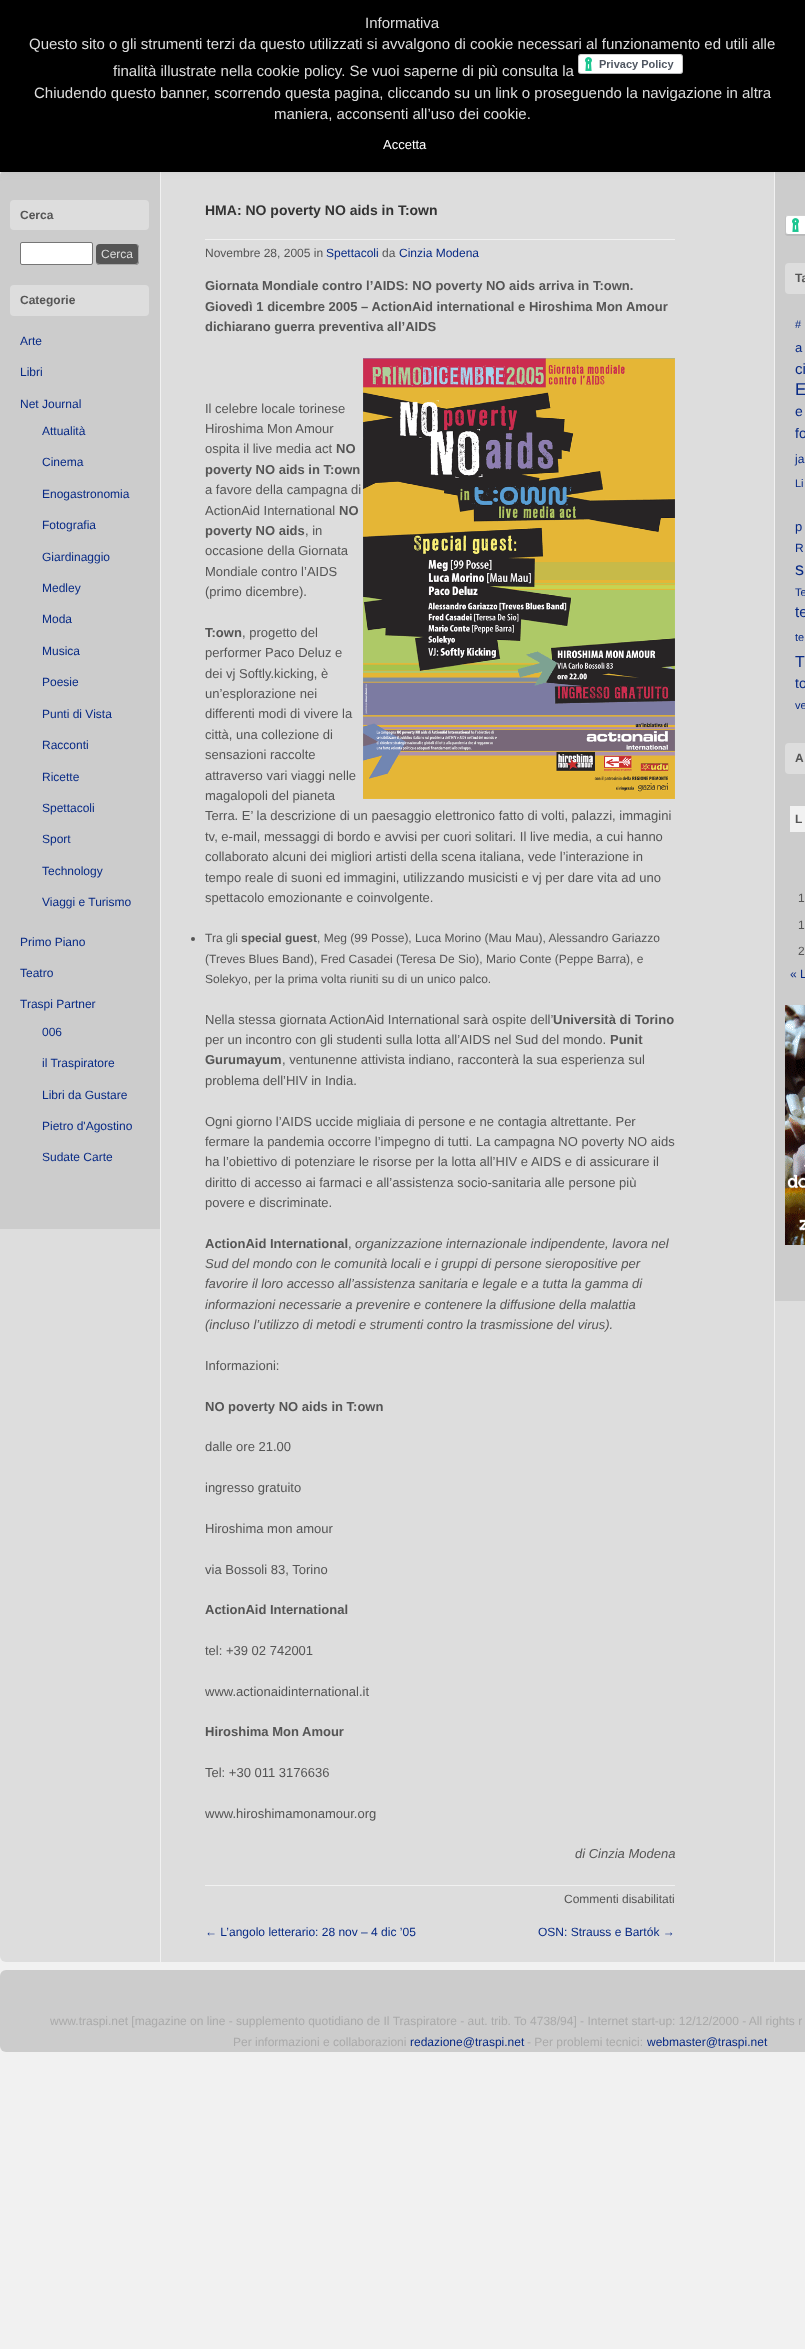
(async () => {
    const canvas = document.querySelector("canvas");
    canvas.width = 805;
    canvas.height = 2349;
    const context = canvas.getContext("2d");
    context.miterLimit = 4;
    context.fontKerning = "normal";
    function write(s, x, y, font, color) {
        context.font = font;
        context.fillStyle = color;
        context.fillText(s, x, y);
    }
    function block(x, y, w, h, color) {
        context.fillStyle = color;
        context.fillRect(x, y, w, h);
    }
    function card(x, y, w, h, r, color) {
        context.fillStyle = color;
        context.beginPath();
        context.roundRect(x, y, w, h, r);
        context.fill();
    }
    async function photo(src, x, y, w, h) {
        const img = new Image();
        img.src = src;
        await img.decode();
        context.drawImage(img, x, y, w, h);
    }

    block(0, 0, 805, 2349, "rgb(241, 241, 241)");
    card(0, 170, 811, 1792, 6, "rgb(221, 221, 221)");
    context.fillStyle = "rgb(204, 204, 204)";
    context.beginPath();
    context.roundRect(0, 170, 160, 1059, [6, 0, 0, 0]);
    context.fill();
    block(160, 170, 1, 1792, "rgb(241, 241, 241)");
    block(774, 170, 1, 1792, "rgb(241, 241, 241)");
    block(775, 172, 30, 1129, "rgb(204, 204, 204)");
    context.fillStyle = "rgba(172, 171, 171, 0.3)";
    context.filter = "blur(5px)";
    context.beginPath();
    context.rect(0, -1, 805, 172);
    context.fill();
    context.filter = "none";
    block(0, 0, 805, 172, "rgb(0, 0, 0)");
    write("Informativa", 365, 28, "15px Liberation Sans", "rgb(221, 221, 221)");
    write("Questo sito o gli strumenti terzi da questo utilizzati si avvalgono di cookie necessari al funzionamento ed utili alle", 29, 49, "15px Liberation Sans", "rgb(221, 221, 221)");
    write("finalità illustrate nella cookie policy. Se vuoi saperne di più consulta la", 113, 76, "15px Liberation Sans", "rgb(221, 221, 221)");
    await photo("media/1.png", 578, 54, 105, 20);
    write("Chiudendo questo banner, scorrendo questa pagina, cliccando su un link o proseguendo la navigazione in altra", 34, 98, "15px Liberation Sans", "rgb(221, 221, 221)");
    write("maniera, acconsenti all’uso dei cookie.", 274, 119, "15px Liberation Sans", "rgb(221, 221, 221)");
    write("Accetta", 383, 149, "13px Liberation Sans", "rgb(255, 255, 255)");
    card(10, 200, 139, 30, 4, "rgb(221, 221, 221)");
    write("Cerca", 20, 219, "bold 12px Liberation Sans", "rgb(85, 85, 85)");
    context.fillStyle = "rgb(255, 255, 255)";
    context.beginPath();
    context.roundRect(20.5, 242.5, 72, 22, 1.5);
    context.fill();
    context.strokeStyle = "rgb(118, 118, 118)";
    context.stroke();
    card(96, 244, 43, 21, 4, "rgb(85, 85, 85)");
    context.fillStyle = "rgb(170, 170, 170)";
    context.beginPath();
    context.moveTo(100, 244);
    context.lineTo(135, 244);
    context.bezierCurveTo(137, 244, 139, 246, 139, 248);
    context.lineTo(139, 261);
    context.bezierCurveTo(139, 263, 137, 265, 135, 265);
    context.lineTo(100, 265);
    context.bezierCurveTo(98, 265, 96, 263, 96, 261);
    context.lineTo(96, 248);
    context.bezierCurveTo(96, 246, 98, 244, 100, 244);
    context.closePath();
    context.moveTo(100, 244);
    context.lineTo(135, 244);
    context.bezierCurveTo(137, 244, 138, 246, 138, 248);
    context.lineTo(138, 261);
    context.bezierCurveTo(138, 263, 137, 264, 135, 264);
    context.lineTo(100, 264);
    context.bezierCurveTo(98, 264, 96, 263, 96, 261);
    context.lineTo(96, 248);
    context.bezierCurveTo(96, 246, 98, 244, 100, 244);
    context.closePath();
    context.fill("evenodd");
    write("Cerca", 101, 258, "12px Liberation Sans", "rgb(221, 221, 221)");
    card(10, 285, 139, 31, 4, "rgb(221, 221, 221)");
    write("Categorie", 20, 304, "bold 12px Liberation Sans", "rgb(85, 85, 85)");
    write("Arte", 20, 345, "12px Liberation Sans", "rgb(8, 42, 133)");
    write("Libri", 20, 376, "12px Liberation Sans", "rgb(8, 42, 133)");
    write("Net Journal", 20, 408, "12px Liberation Sans", "rgb(8, 42, 133)");
    write("Attualità", 42, 435, "12px Liberation Sans", "rgb(8, 42, 133)");
    write("Cinema", 42, 466, "12px Liberation Sans", "rgb(8, 42, 133)");
    write("Enogastronomia", 42, 498, "12px Liberation Sans", "rgb(8, 42, 133)");
    write("Fotografia", 42, 529, "12px Liberation Sans", "rgb(8, 42, 133)");
    write("Giardinaggio", 42, 561, "12px Liberation Sans", "rgb(8, 42, 133)");
    write("Medley", 42, 592, "12px Liberation Sans", "rgb(8, 42, 133)");
    write("Moda", 42, 623, "12px Liberation Sans", "rgb(8, 42, 133)");
    write("Musica", 42, 655, "12px Liberation Sans", "rgb(8, 42, 133)");
    write("Poesie", 42, 686, "12px Liberation Sans", "rgb(8, 42, 133)");
    write("Punti di Vista", 42, 718, "12px Liberation Sans", "rgb(8, 42, 133)");
    write("Racconti", 42, 749, "12px Liberation Sans", "rgb(8, 42, 133)");
    write("Ricette", 42, 781, "12px Liberation Sans", "rgb(8, 42, 133)");
    write("Spettacoli", 42, 812, "12px Liberation Sans", "rgb(8, 42, 133)");
    write("Sport", 42, 843, "12px Liberation Sans", "rgb(8, 42, 133)");
    write("Technology", 42, 875, "12px Liberation Sans", "rgb(8, 42, 133)");
    write("Viaggi e Turismo", 42, 906, "12px Liberation Sans", "rgb(8, 42, 133)");
    write("Primo Piano", 20, 946, "12px Liberation Sans", "rgb(8, 42, 133)");
    write("Teatro", 20, 977, "12px Liberation Sans", "rgb(8, 42, 133)");
    write("Traspi Partner", 20, 1008, "12px Liberation Sans", "rgb(8, 42, 133)");
    write("006", 42, 1036, "12px Liberation Sans", "rgb(8, 42, 133)");
    write("il Traspiratore", 42, 1067, "12px Liberation Sans", "rgb(8, 42, 133)");
    write("Libri da Gustare", 42, 1099, "12px Liberation Sans", "rgb(8, 42, 133)");
    write("Pietro d'Agostino", 42, 1130, "12px Liberation Sans", "rgb(8, 42, 133)");
    write("Sudate Carte", 42, 1161, "12px Liberation Sans", "rgb(8, 42, 133)");
    write("HMA: NO poverty NO aids in T:own", 205, 215, "bold 14px Liberation Sans", "rgb(51, 51, 51)");
    block(205, 239, 470, 1, "rgb(241, 241, 241)");
    write("Novembre 28, 2005 in", 205, 257, "12px Liberation Sans", "rgb(85, 85, 85)");
    write("Spettacoli", 326, 257, "12px Liberation Sans", "rgb(8, 42, 133)");
    write("da", 382, 257, "12px Liberation Sans", "rgb(85, 85, 85)");
    write("Cinzia Modena", 399, 257, "12px Liberation Sans", "rgb(8, 42, 133)");
    write("Giornata Mondiale contro l’AIDS: NO poverty NO aids arriva in T:own.", 205, 290, "bold 13px Liberation Sans", "rgb(85, 85, 85)");
    write("Giovedì 1 dicembre 2005 – ActionAid international e Hiroshima Mon Amour", 205, 311, "bold 13px Liberation Sans", "rgb(85, 85, 85)");
    write("dichiarano guerra preventiva all’AIDS", 205, 331, "bold 13px Liberation Sans", "rgb(85, 85, 85)");
    write("Il celebre locale torinese", 205, 413, "13px Liberation Sans", "rgb(85, 85, 85)");
    await photo("media/2.png", 363, 358, 312, 441);
    write("Hiroshima Mon Amour", 205, 433, "13px Liberation Sans", "rgb(85, 85, 85)");
    write("ospita il live media act", 205, 453, "13px Liberation Sans", "rgb(85, 85, 85)");
    write("NO", 336, 453, "bold 13px Liberation Sans", "rgb(85, 85, 85)");
    write("poverty NO aids in T:own", 205, 474, "bold 13px Liberation Sans", "rgb(85, 85, 85)");
    write("a favore della campagna di", 205, 494, "13px Liberation Sans", "rgb(85, 85, 85)");
    write("ActionAid International", 205, 515, "13px Liberation Sans", "rgb(85, 85, 85)");
    write("NO", 339, 515, "bold 13px Liberation Sans", "rgb(85, 85, 85)");
    write("poverty NO aids", 205, 535, "bold 13px Liberation Sans", "rgb(85, 85, 85)");
    write(", in", 305, 535, "13px Liberation Sans", "rgb(85, 85, 85)");
    write("occasione della Giornata", 205, 555, "13px Liberation Sans", "rgb(85, 85, 85)");
    write("Mondiale contro l’AIDS", 205, 576, "13px Liberation Sans", "rgb(85, 85, 85)");
    write("(primo dicembre).", 205, 596, "13px Liberation Sans", "rgb(85, 85, 85)");
    write("T:own", 205, 637, "bold 13px Liberation Sans", "rgb(85, 85, 85)");
    write(", progetto del", 242, 637, "13px Liberation Sans", "rgb(85, 85, 85)");
    write("performer Paco Deluz e", 205, 657, "13px Liberation Sans", "rgb(85, 85, 85)");
    write("dei vj Softly.kicking, è", 205, 678, "13px Liberation Sans", "rgb(85, 85, 85)");
    write("un’esplorazione nei", 205, 698, "13px Liberation Sans", "rgb(85, 85, 85)");
    write("differenti modi di vivere la", 205, 718, "13px Liberation Sans", "rgb(85, 85, 85)");
    write("città, una collezione di", 205, 739, "13px Liberation Sans", "rgb(85, 85, 85)");
    write("sensazioni raccolte", 205, 759, "13px Liberation Sans", "rgb(85, 85, 85)");
    write("attraverso vari viaggi nelle", 205, 780, "13px Liberation Sans", "rgb(85, 85, 85)");
    write("magalopoli del pianeta", 205, 800, "13px Liberation Sans", "rgb(85, 85, 85)");
    write("Terra. E’ la descrizione di un paesaggio elettronico fatto di volti, palazzi, immagini", 205, 820, "13px Liberation Sans", "rgb(85, 85, 85)");
    write("tv, e-mail, messaggi di bordo e avvisi per cuori solitari. Il live media, a cui hanno", 205, 841, "13px Liberation Sans", "rgb(85, 85, 85)");
    write("collaborato alcuni dei migliori artisti della scena italiana, vede l’interazione in", 205, 861, "13px Liberation Sans", "rgb(85, 85, 85)");
    write("tempo reale di suoni ed immagini, utilizzando musicisti e vj per dare vita ad uno", 205, 882, "13px Liberation Sans", "rgb(85, 85, 85)");
    write("spettacolo emozionante e coinvolgente.", 205, 902, "13px Liberation Sans", "rgb(85, 85, 85)");
    context.beginPath();
    context.arc(193, 939, 2, 0, Math.PI * 2);
    context.fill();
    write("Tra gli", 205, 942, "12px Liberation Sans", "rgb(85, 85, 85)");
    write("special guest", 241, 942, "bold 12px Liberation Sans", "rgb(85, 85, 85)");
    write(", Meg (99 Posse), Luca Morino (Mau Mau), Alessandro Gariazzo", 317, 942, "12px Liberation Sans", "rgb(85, 85, 85)");
    write("(Treves Blues Band), Fred Casadei (Teresa De Sio), Mario Conte (Peppe Barra), e", 205, 963, "12px Liberation Sans", "rgb(85, 85, 85)");
    write("Solekyo, per la prima volta riuniti su di un unico palco.", 205, 983, "12px Liberation Sans", "rgb(85, 85, 85)");
    write("Nella stessa giornata ActionAid International sarà ospite dell’", 205, 1024, "13px Liberation Sans", "rgb(85, 85, 85)");
    write("Università di Torino", 553, 1024, "bold 13px Liberation Sans", "rgb(85, 85, 85)");
    write("per un incontro con gli studenti sulla lotta all’AIDS nel Sud del mondo.", 205, 1044, "13px Liberation Sans", "rgb(85, 85, 85)");
    write("Punit", 610, 1044, "bold 13px Liberation Sans", "rgb(85, 85, 85)");
    write("Gurumayum", 205, 1064, "bold 13px Liberation Sans", "rgb(85, 85, 85)");
    write(", ventunenne attivista indiano, racconterà la sua esperienza sul", 282, 1064, "13px Liberation Sans", "rgb(85, 85, 85)");
    write("problema dell’HIV in India.", 205, 1085, "13px Liberation Sans", "rgb(85, 85, 85)");
    write("Ogni giorno l’AIDS uccide migliaia di persone e ne contagia altrettante. Per", 205, 1126, "13px Liberation Sans", "rgb(85, 85, 85)");
    write("fermare la pandemia occorre l’impegno di tutti. La campagna NO poverty NO aids", 205, 1146, "13px Liberation Sans", "rgb(85, 85, 85)");
    write("ha l’obiettivo di potenziare le risorse per la lotta all’HIV e AIDS e di assicurare il", 205, 1166, "13px Liberation Sans", "rgb(85, 85, 85)");
    write("diritto di accesso ai farmaci e all’assistenza socio-sanitaria alle persone più", 205, 1187, "13px Liberation Sans", "rgb(85, 85, 85)");
    write("povere e discriminate.", 205, 1207, "13px Liberation Sans", "rgb(85, 85, 85)");
    write("ActionAid International", 205, 1248, "bold 13px Liberation Sans", "rgb(85, 85, 85)");
    write(",", 348, 1248, "13px Liberation Sans", "rgb(85, 85, 85)");
    write("organizzazione internazionale indipendente, lavora nel", 355, 1248, "italic 13px Liberation Sans", "rgb(85, 85, 85)");
    write("Sud del mondo con le comunità locali e i gruppi di persone sieropositive per", 205, 1268, "italic 13px Liberation Sans", "rgb(85, 85, 85)");
    write("favorire il loro accesso all’assistenza sanitaria e legale e a tutta la gamma di", 205, 1288, "italic 13px Liberation Sans", "rgb(85, 85, 85)");
    write("informazioni necessarie a prevenire e contenere la diffusione della malattia", 205, 1309, "italic 13px Liberation Sans", "rgb(85, 85, 85)");
    write("(incluso l’utilizzo di metodi e strumenti contro la trasmissione del virus).", 205, 1329, "italic 13px Liberation Sans", "rgb(85, 85, 85)");
    write("Informazioni:", 205, 1370, "13px Liberation Sans", "rgb(85, 85, 85)");
    write("NO poverty NO aids in T:own", 205, 1411, "bold 13px Liberation Sans", "rgb(85, 85, 85)");
    write("dalle ore 21.00", 205, 1451, "13px Liberation Sans", "rgb(85, 85, 85)");
    write("ingresso gratuito", 205, 1492, "13px Liberation Sans", "rgb(85, 85, 85)");
    write("Hiroshima mon amour", 205, 1533, "13px Liberation Sans", "rgb(85, 85, 85)");
    write("via Bossoli 83, Torino", 205, 1574, "13px Liberation Sans", "rgb(85, 85, 85)");
    write("ActionAid International", 205, 1614, "bold 13px Liberation Sans", "rgb(85, 85, 85)");
    write("tel: +39 02 742001", 205, 1655, "13px Liberation Sans", "rgb(85, 85, 85)");
    write("www.actionaidinternational.it", 205, 1696, "13px Liberation Sans", "rgb(85, 85, 85)");
    write("Hiroshima Mon Amour", 205, 1736, "bold 13px Liberation Sans", "rgb(85, 85, 85)");
    write("Tel: +30 011 3176636", 205, 1777, "13px Liberation Sans", "rgb(85, 85, 85)");
    write("www.hiroshimamonamour.org", 205, 1818, "13px Liberation Sans", "rgb(85, 85, 85)");
    write("di Cinzia Modena", 575, 1858, "italic 13px Liberation Sans", "rgb(85, 85, 85)");
    block(205, 1885, 470, 1, "rgb(241, 241, 241)");
    write("Commenti disabilitati", 564, 1903, "12px Liberation Sans", "rgb(85, 85, 85)");
    write("← L’angolo letterario: 28 nov – 4 dic ’05", 205, 1936, "12px Liberation Sans", "rgb(8, 42, 133)");
    write("OSN: Strauss e Bartók →", 538, 1936, "12px Liberation Sans", "rgb(8, 42, 133)");
    await photo("media/3.png", 785, 215, 20, 21);
    card(785, 263, 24, 31, 4, "rgb(221, 221, 221)");
    write("Ta", 795, 282, "bold 12px Liberation Sans", "rgb(85, 85, 85)");
    write("#", 795, 328, "11px Liberation Sans", "rgb(8, 42, 133)");
    write("a", 795, 352, "13px Liberation Sans", "rgb(8, 42, 133)");
    write("ci", 795, 374, "15px Liberation Sans", "rgb(8, 42, 133)");
    write("E", 795, 395, "17px Liberation Sans", "rgb(8, 42, 133)");
    write("e", 795, 416, "14px Liberation Sans", "rgb(8, 42, 133)");
    write("fo", 795, 438, "14px Liberation Sans", "rgb(8, 42, 133)");
    write("ja", 795, 463, "12px Liberation Sans", "rgb(8, 42, 133)");
    write("Li", 795, 487, "11px Liberation Sans", "rgb(8, 42, 133)");
    write("p", 795, 531, "13px Liberation Sans", "rgb(8, 42, 133)");
    write("R", 795, 552, "12px Liberation Sans", "rgb(8, 42, 133)");
    write("s", 795, 575, "18px Liberation Sans", "rgb(8, 42, 133)");
    write("Te", 795, 596, "11px Liberation Sans", "rgb(8, 42, 133)");
    write("te", 795, 617, "15px Liberation Sans", "rgb(8, 42, 133)");
    write("te", 795, 641, "11px Liberation Sans", "rgb(8, 42, 133)");
    write("T", 795, 667, "16px Liberation Sans", "rgb(8, 42, 133)");
    write("to", 795, 688, "14px Liberation Sans", "rgb(8, 42, 133)");
    write("ve", 795, 709, "11px Liberation Sans", "rgb(8, 42, 133)");
    card(785, 743, 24, 31, 4, "rgb(221, 221, 221)");
    write("A", 795, 762, "bold 12px Liberation Sans", "rgb(85, 85, 85)");
    block(790, 806, 15, 26, "rgb(241, 241, 241)");
    write("L", 795, 823, "bold 12px Liberation Sans", "rgb(85, 85, 85)");
    write("1", 798, 902, "12px Liberation Sans", "rgb(85, 85, 85)");
    write("1", 798, 929, "12px Liberation Sans", "rgb(85, 85, 85)");
    write("2", 798, 955, "12px Liberation Sans", "rgb(85, 85, 85)");
    write("« L", 790, 978, "12px Liberation Sans", "rgb(8, 42, 133)");
    await photo("media/4.png", 785, 1005, 20, 240);
    card(0, 1970, 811, 82, 6, "rgb(204, 204, 204)");
    write("www.traspi.net [magazine on line - supplemento quotidiano de Il Traspiratore - aut. trib. To 4738/94] - Internet start-up: 12/12/2000 - All rights r", 50, 2025, "12px Liberation Sans", "rgb(170, 170, 170)");
    write("Per informazioni e collaborazioni", 233, 2046, "12px Liberation Sans", "rgb(170, 170, 170)");
    write("redazione@traspi.net", 410, 2046, "12px Liberation Sans", "rgb(8, 42, 133)");
    write("- Per problemi tecnici:", 527, 2046, "12px Liberation Sans", "rgb(170, 170, 170)");
    write("webmaster@traspi.net", 647, 2046, "12px Liberation Sans", "rgb(8, 42, 133)");
})();
